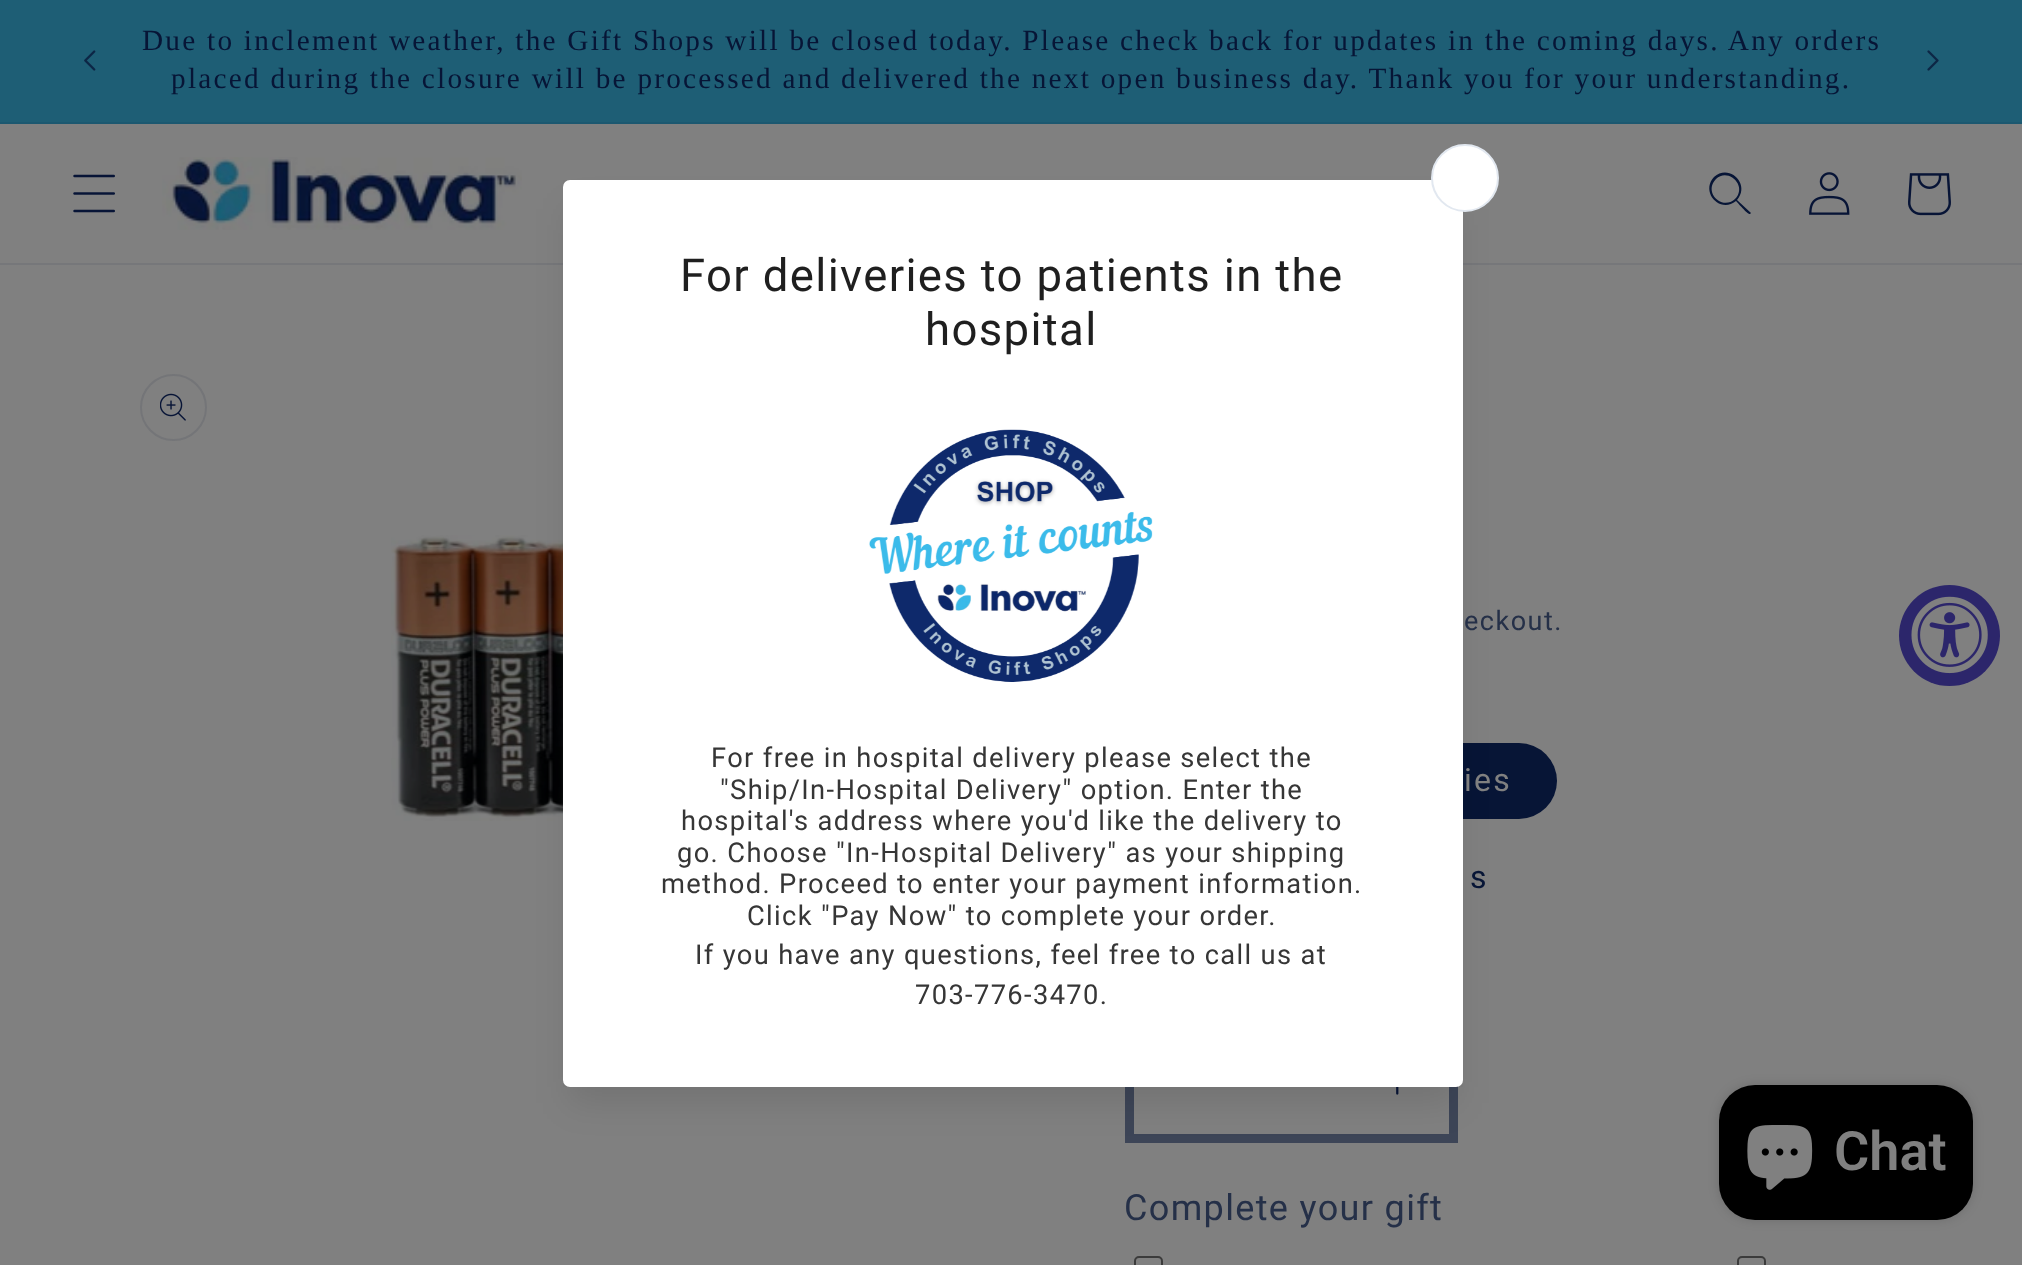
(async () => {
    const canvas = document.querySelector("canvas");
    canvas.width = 2022;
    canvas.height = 1265;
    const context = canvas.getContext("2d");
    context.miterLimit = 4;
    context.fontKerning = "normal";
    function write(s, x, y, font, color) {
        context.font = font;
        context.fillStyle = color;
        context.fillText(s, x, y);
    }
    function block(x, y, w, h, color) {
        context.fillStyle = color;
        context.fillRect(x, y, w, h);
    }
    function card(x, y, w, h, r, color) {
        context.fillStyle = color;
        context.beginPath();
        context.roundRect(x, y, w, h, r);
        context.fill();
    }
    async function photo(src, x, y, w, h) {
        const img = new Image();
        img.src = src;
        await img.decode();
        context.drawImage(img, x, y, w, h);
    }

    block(0, 0, 2022, 1265, "rgb(128, 128, 128)");
    block(0, 0, 2022, 122, "rgb(30, 94, 117)");
    block(0, 122, 2022, 2, "rgb(28, 88, 112)");
    await photo("media/1.png", 84, 50, 12, 21);
    context.letterSpacing = "2.25px";
    write("Due to inclement weather, the Gift Shops will be closed today. Please check back for updates in the coming days. Any orders", 142, 50, "29.25px Liberation Serif", "rgb(7, 21, 54)");
    write("placed during the closure will be processed and delivered the next open business day. Thank you for your understanding.", 171, 88, "29.25px Liberation Serif", "rgb(7, 21, 54)");
    await photo("media/2.png", 1927, 50, 12, 21);
    block(0, 263, 2022, 2, "rgb(118, 119, 122)");
    await photo("media/3.png", 73, 174, 42, 39);
    await photo("media/4.png", 162, 157, 360, 73);
    context.fillStyle = "rgb(7, 21, 54)";
    context.beginPath();
    context.moveTo(1735, 199);
    context.bezierCurveTo(1722, 211, 1703, 192, 1716, 179);
    context.bezierCurveTo(1728, 167, 1748, 186, 1735, 199);
    context.closePath();
    context.moveTo(1736, 201);
    context.bezierCurveTo(1720, 214, 1700, 192, 1714, 177);
    context.bezierCurveTo(1729, 163, 1751, 184, 1737, 200);
    context.lineTo(1751, 213);
    context.lineTo(1750, 214);
    context.bezierCurveTo(1748, 215, 1738, 203, 1736, 201);
    context.closePath();
    context.fill("evenodd");
    await photo("media/5.png", 1809, 172, 41, 43);
    await photo("media/6.png", 1908, 173, 43, 43);
    await photo("media/10.png", 391, 535, 172, 286);
    card(1125, 743, 432, 76, 38, "rgb(7, 21, 54)");
    await photo("media/11.png", 1396, 1087, 3, 8);
    context.strokeStyle = "rgb(61, 69, 87)";
    context.lineWidth = 9;
    context.strokeRect(1129.5, 1028.5, 324, 110);
    context.fillStyle = "rgba(0, 0, 0, 0.1)";
    context.filter = "blur(17px)";
    context.beginPath();
    context.rect(569, 209, 887, 894);
    context.fill();
    context.filter = "none";
    context.save();
    context.beginPath();
    context.rect(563, 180, 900, 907);
    context.clip();
    context.fillStyle = "rgba(0, 0, 0, 0.12)";
    context.filter = "blur(22.5px)";
    context.beginPath();
    context.rect(569, 187, 887, 893);
    context.fill();
    context.filter = "none";
    context.restore();
    card(563, 180, 900, 907, 7, "rgb(255, 255, 255)");
    context.beginPath();
    context.arc(1465, 178, 33, 0, Math.PI * 2);
    context.fill();
    context.strokeStyle = "rgb(226, 232, 240)";
    context.lineWidth = 2;
    context.stroke();
    context.letterSpacing = "1.35px";
    write("For deliveries to patients in the", 680, 291, "45.5px Roboto", "rgb(31, 31, 31)");
    write("hospital", 925, 345, "45.5px Roboto", "rgb(31, 31, 31)");
    await photo("media/7.png", 869, 429, 284, 253);
    write("For free in hospital delivery please select the", 711, 767, "27.3px Roboto", "rgb(54, 54, 54)");
    write("\"Ship/In-Hospital Delivery\" option. Enter the", 720, 799, "27.3px Roboto", "rgb(54, 54, 54)");
    write("hospital's address where you'd like the delivery to", 681, 830, "27.3px Roboto", "rgb(54, 54, 54)");
    write("go. Choose \"In-Hospital Delivery\" as your shipping", 677, 862, "27.3px Roboto", "rgb(54, 54, 54)");
    write("method. Proceed to enter your payment information.", 661, 893, "27.3px Roboto", "rgb(54, 54, 54)");
    write("Click \"Pay Now\" to complete your order.", 747, 925, "27.3px Roboto", "rgb(54, 54, 54)");
    write("If you have any questions, feel free to call us at", 695, 964, "27.3px Roboto", "rgb(54, 54, 54)");
    write("703-776-3470.", 915, 1004, "27.3px Roboto", "rgb(54, 54, 54)");
    context.fillStyle = "rgb(44, 38, 107)";
    context.beginPath();
    context.arc(1949.5, 635.5, 50.5, 0, Math.PI * 2);
    context.fill();
    await photo("media/8.png", 1911, 596, 77, 78);
    context.beginPath();
    context.arc(173.5, 407.5, 32.5, 0, Math.PI * 2);
    context.strokeStyle = "rgb(116, 117, 120)";
    context.stroke();
    await photo("media/9.png", 160, 393, 26, 28);
    context.letterSpacing = "1.5px";
    write("eckout.", 1464, 630, "27px Roboto", "rgb(37, 48, 72)");
    context.letterSpacing = "2.25px";
    write("ies", 1464, 791, "32px Roboto", "rgb(128, 128, 128)");
    write("s", 1470, 888, "32px Roboto", "rgb(7, 21, 54)");
    context.letterSpacing = "1.35px";
    write("Complete your gift", 1124, 1220, "36px Roboto", "rgb(37, 48, 72)");
    context.beginPath();
    context.roundRect(1135, 1257, 27, 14, 4);
    context.strokeStyle = "rgb(59, 59, 59)";
    context.stroke();
    context.beginPath();
    context.roundRect(1738, 1257, 27, 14, 4);
    context.stroke();
    context.fillStyle = "rgba(0, 0, 0, 0.15)";
    context.filter = "blur(5.5px)";
    context.beginPath();
    context.roundRect(1719, 1085, 254, 135, 36);
    context.fill();
    context.filter = "none";
    card(1719, 1085, 254, 135, 36, "rgb(0, 0, 0)");
    await photo("media/12.png", 1747, 1125, 66, 65);
    context.letterSpacing = "0px";
    write("Chat", 1834, 1170, "600 54px Roboto", "rgb(128, 128, 128)");
})();
